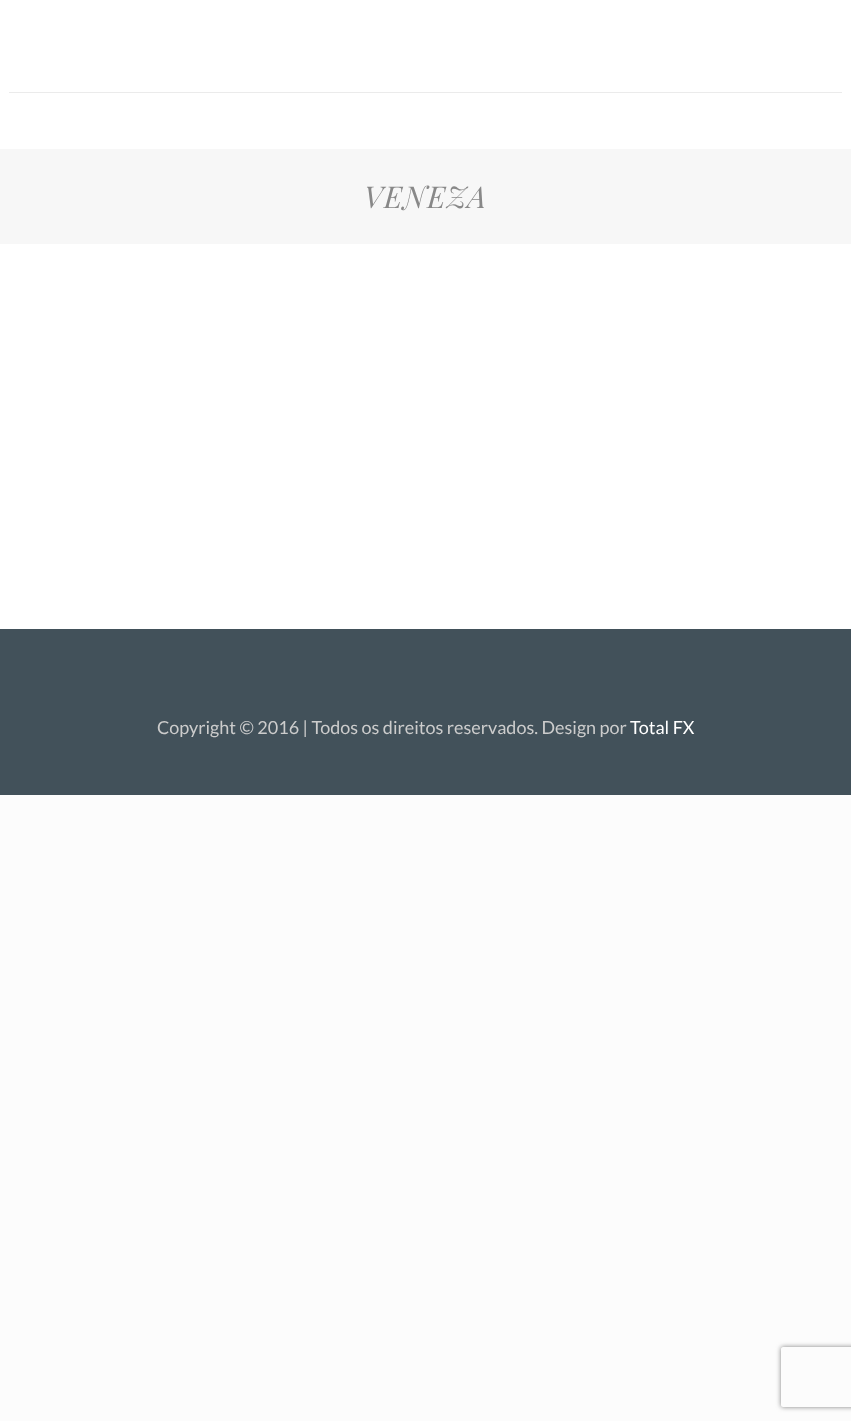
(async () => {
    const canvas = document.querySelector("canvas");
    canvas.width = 851;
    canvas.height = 1421;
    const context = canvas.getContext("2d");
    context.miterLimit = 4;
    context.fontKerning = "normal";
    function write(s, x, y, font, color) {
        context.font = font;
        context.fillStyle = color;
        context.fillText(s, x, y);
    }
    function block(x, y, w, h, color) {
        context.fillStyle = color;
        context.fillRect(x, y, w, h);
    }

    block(0, 0, 851, 1421, "rgb(252, 252, 252)");
    block(0, 244, 851, 385, "rgb(255, 255, 255)");
    block(0, 0, 851, 149, "rgb(255, 255, 255)");
    block(9, 92, 833, 1, "rgb(235, 235, 235)");
    block(0, 149, 851, 95, "rgb(247, 247, 247)");
    context.letterSpacing = "1px";
    write("VENEZA", 364, 208, "italic 30px Playfair Display", "rgb(136, 136, 136)");
    block(0, 629, 851, 166, "rgb(66, 81, 90)");
    context.letterSpacing = "0px";
    write("Copyright © 2016 | Todos os direitos reservados. Design por", 157, 734, "18px Lato", "rgb(204, 204, 204)");
    write("Total FX", 630, 734, "18px Lato", "rgb(255, 255, 255)");
    context.save();
    context.beginPath();
    context.moveTo(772, 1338);
    context.lineTo(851, 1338);
    context.lineTo(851, 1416);
    context.lineTo(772, 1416);
    context.closePath();
    context.moveTo(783, 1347);
    context.lineTo(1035, 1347);
    context.bezierCurveTo(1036, 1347, 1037, 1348, 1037, 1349);
    context.lineTo(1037, 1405);
    context.bezierCurveTo(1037, 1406, 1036, 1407, 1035, 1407);
    context.lineTo(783, 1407);
    context.bezierCurveTo(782, 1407, 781, 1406, 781, 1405);
    context.lineTo(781, 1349);
    context.bezierCurveTo(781, 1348, 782, 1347, 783, 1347);
    context.closePath();
    context.clip("evenodd");
    context.fillStyle = "rgb(128, 128, 128)";
    context.filter = "blur(2.5px)";
    context.beginPath();
    context.roundRect(781, 1347, 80, 60, 2);
    context.fill();
    context.filter = "none";
    context.restore();
})();
